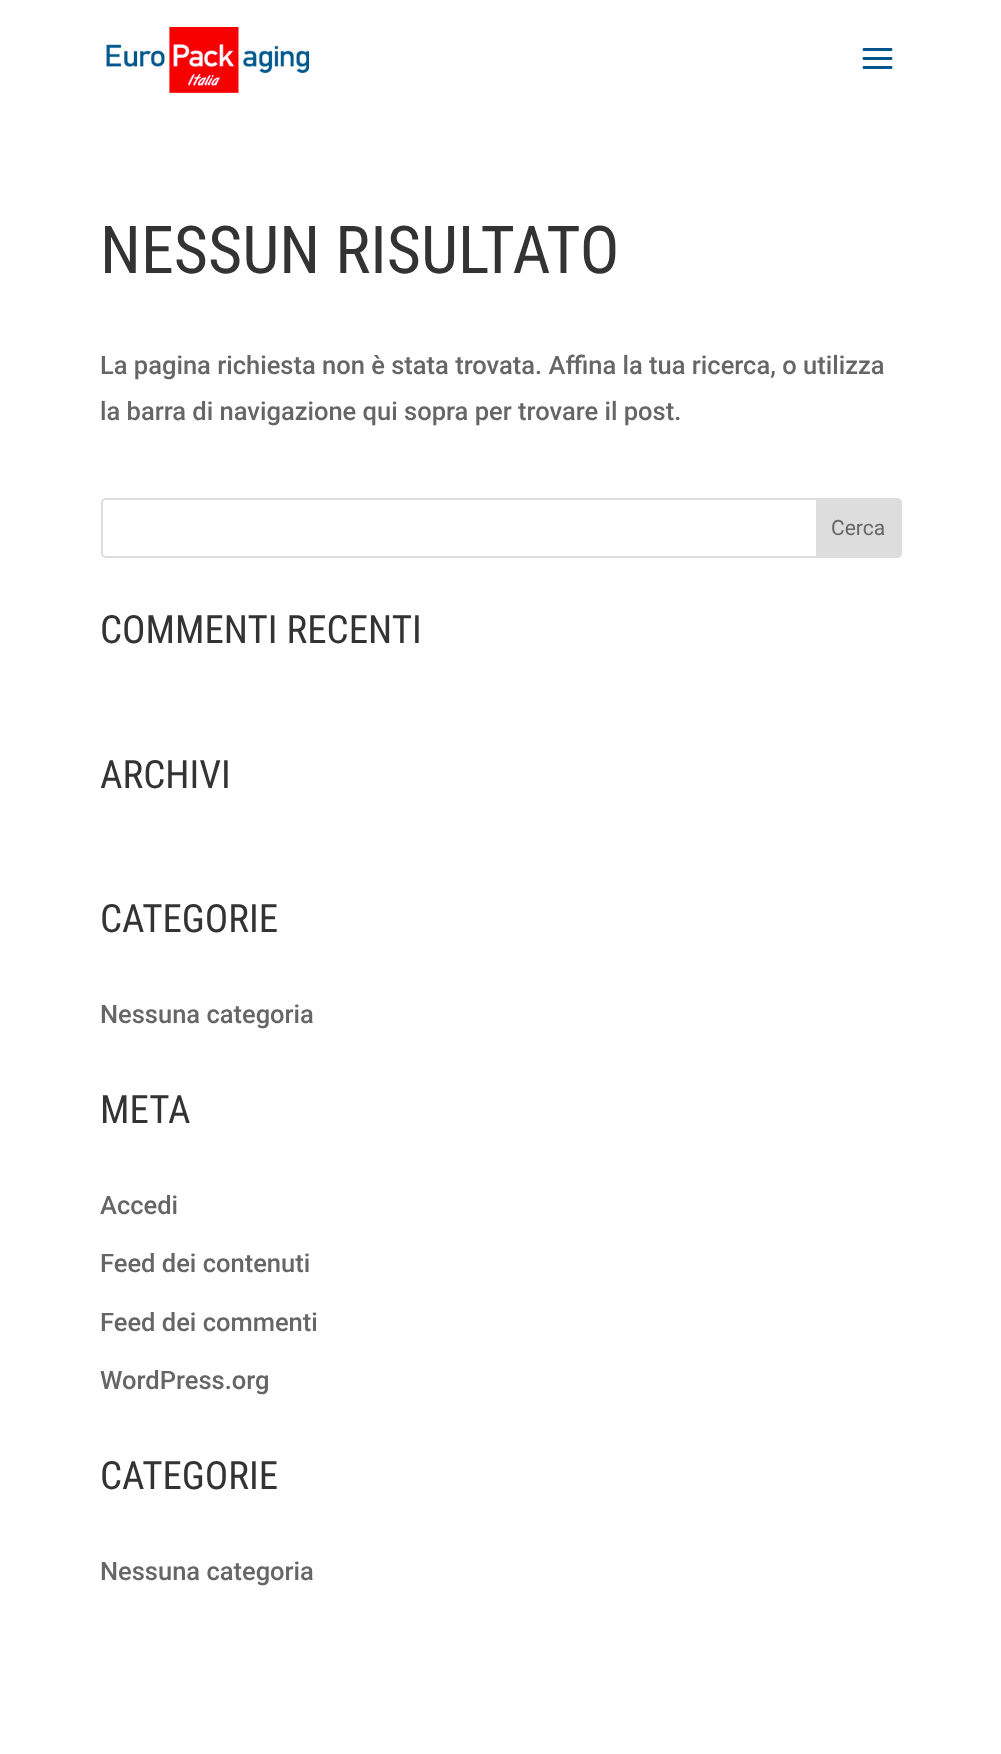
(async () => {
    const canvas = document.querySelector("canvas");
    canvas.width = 1001;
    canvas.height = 1754;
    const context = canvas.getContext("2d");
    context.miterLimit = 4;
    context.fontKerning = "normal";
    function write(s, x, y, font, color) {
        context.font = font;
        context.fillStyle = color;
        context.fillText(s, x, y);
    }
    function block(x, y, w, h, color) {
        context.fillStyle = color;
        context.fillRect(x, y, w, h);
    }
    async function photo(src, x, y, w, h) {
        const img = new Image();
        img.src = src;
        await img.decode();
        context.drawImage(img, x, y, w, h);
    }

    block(0, 0, 1001, 1754, "rgb(255, 255, 255)");
    await photo("media/1.png", 106, 27, 203, 66);
    await photo("media/2.png", 862, 48, 31, 21);
    write("NESSUN RISULTATO", 100, 273, "66px Roboto Condensed", "rgb(51, 51, 51)");
    write("La pagina richiesta non è stata trovata. Affina la tua ricerca, o utilizza", 100, 374, "500 25.5px Roboto", "rgb(102, 102, 102)");
    write("la barra di navigazione qui sopra per trovare il post.", 100, 420, "500 25.5px Roboto", "rgb(102, 102, 102)");
    context.beginPath();
    context.roundRect(102, 499, 799, 58, 4);
    context.strokeStyle = "rgb(221, 221, 221)";
    context.lineWidth = 2;
    context.stroke();
    context.fillStyle = "rgb(221, 221, 221)";
    context.beginPath();
    context.roundRect(817, 499, 84, 58, [0, 4, 4, 0]);
    context.fill();
    context.stroke();
    write("Cerca", 831, 535, "21px Roboto", "rgb(102, 102, 102)");
    write("COMMENTI RECENTI", 100, 643, "39px Roboto Condensed", "rgb(51, 51, 51)");
    write("ARCHIVI", 100, 788, "39px Roboto Condensed", "rgb(51, 51, 51)");
    write("CATEGORIE", 100, 932, "39px Roboto Condensed", "rgb(51, 51, 51)");
    write("Nessuna categoria", 100, 1023, "500 25.5px Roboto", "rgb(102, 102, 102)");
    write("META", 100, 1123, "39px Roboto Condensed", "rgb(51, 51, 51)");
    write("Accedi", 100, 1214, "500 25.5px Roboto", "rgb(102, 102, 102)");
    write("Feed dei contenuti", 100, 1272, "500 25.5px Roboto", "rgb(102, 102, 102)");
    write("Feed dei commenti", 100, 1331, "500 25.5px Roboto", "rgb(102, 102, 102)");
    write("WordPress.org", 100, 1389, "500 25.5px Roboto", "rgb(102, 102, 102)");
    write("CATEGORIE", 100, 1489, "39px Roboto Condensed", "rgb(51, 51, 51)");
    write("Nessuna categoria", 100, 1580, "500 25.5px Roboto", "rgb(102, 102, 102)");
})();
